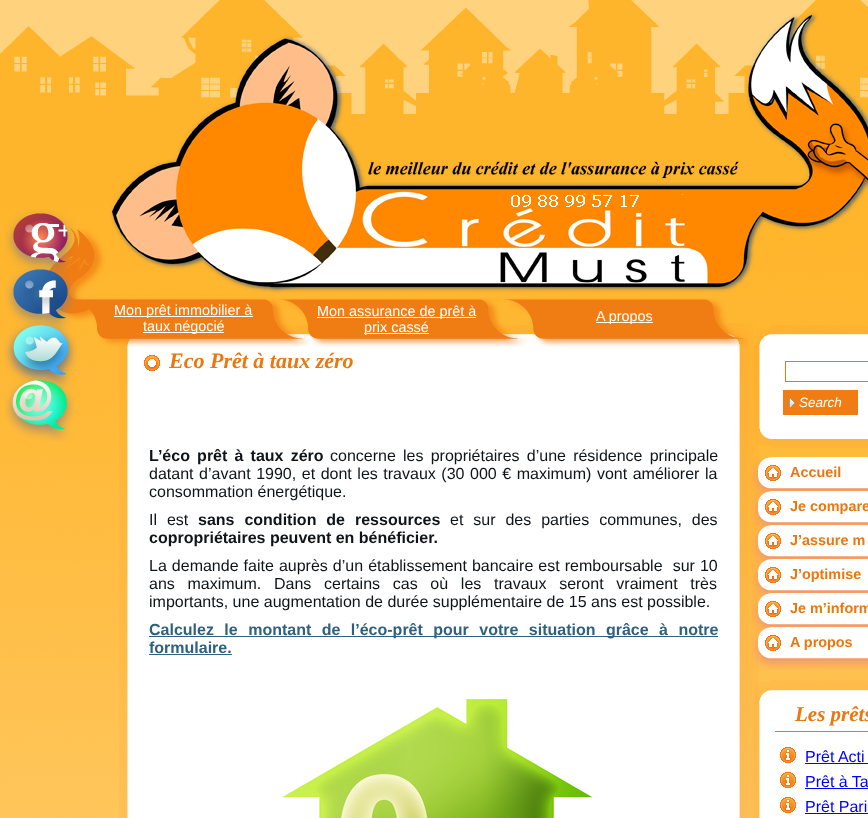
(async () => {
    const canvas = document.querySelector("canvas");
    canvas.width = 868;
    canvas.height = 818;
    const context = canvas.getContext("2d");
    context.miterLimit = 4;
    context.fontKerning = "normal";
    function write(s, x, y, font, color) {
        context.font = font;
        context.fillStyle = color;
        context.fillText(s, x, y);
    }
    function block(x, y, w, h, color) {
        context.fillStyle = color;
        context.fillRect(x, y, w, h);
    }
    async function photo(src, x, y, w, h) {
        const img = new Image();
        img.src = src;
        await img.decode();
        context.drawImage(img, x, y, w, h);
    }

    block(0, 0, 868, 818, "rgb(255, 210, 126)");
    await photo("media/1.png", 0, 0, 868, 818);
    await photo("media/11.png", 124, 338, 15, 8);
    await photo("media/12.png", 139, 325, 589, 21);
    await photo("media/14.png", 119, 346, 20, 472);
    block(139, 346, 589, 472, "rgb(255, 255, 255)");
    await photo("media/8.png", 49, 228, 261, 119);
    await photo("media/2.png", 4, 209, 72, 66);
    await photo("media/3.png", 5, 266, 71, 65);
    await photo("media/4.png", 4, 321, 73, 68);
    await photo("media/5.png", 5, 378, 70, 64);
    await photo("media/6.png", 110, 12, 758, 281);
    await photo("media/7.png", 806, 123, 62, 66);
    block(114, 316, 139, 1, "rgb(255, 255, 255)");
    write("Mon prêt immobilier à", 114, 315, "14.4px Liberation Sans", "rgb(255, 255, 255)");
    block(143, 332, 81, 1, "rgb(255, 255, 255)");
    write("taux négocié", 143, 331, "14.4px Liberation Sans", "rgb(255, 255, 255)");
    await photo("media/9.png", 279, 298, 247, 49);
    block(317, 317, 159, 1, "rgb(255, 255, 255)");
    write("Mon assurance de prêt à", 317, 316, "14.4px Liberation Sans", "rgb(255, 255, 255)");
    block(364, 333, 65, 1, "rgb(255, 255, 255)");
    write("prix cassé", 364, 332, "14.4px Liberation Sans", "rgb(255, 255, 255)");
    await photo("media/13.png", 728, 323, 26, 23);
    await photo("media/15.png", 728, 346, 31, 472);
    await photo("media/10.png", 504, 298, 244, 49);
    block(596, 322, 57, 1, "rgb(255, 255, 255)");
    write("A propos", 596, 321, "14.4px Liberation Sans", "rgb(255, 255, 255)");
    await photo("media/16.png", 144, 355, 16, 16);
    write("Eco Prêt à taux zéro", 169, 368, "italic bold 22px Liberation Serif", "rgb(232, 120, 15)");
    context.wordSpacing = "2.75px";
    write("L’éco prêt à taux zéro", 149, 461, "bold 16px Liberation Sans", "rgb(15, 20, 25)");
    write("concerne les propriétaires d’une résidence principale", 330, 461, "16px Liberation Sans", "rgb(15, 20, 25)");
    context.wordSpacing = "1.1px";
    write("datant d’avant 1990, et dont les travaux (30 000 € maximum) vont améliorer la", 149, 479, "16px Liberation Sans", "rgb(15, 20, 25)");
    context.wordSpacing = "0px";
    write("consommation énergétique.", 149, 497, "16px Liberation Sans", "rgb(15, 20, 25)");
    context.wordSpacing = "5.5px";
    write("Il est", 149, 525, "16px Liberation Sans", "rgb(15, 20, 25)");
    write("sans condition de ressources", 198, 525, "bold 16px Liberation Sans", "rgb(15, 20, 25)");
    write("et sur des parties communes, des", 450, 525, "16px Liberation Sans", "rgb(15, 20, 25)");
    context.wordSpacing = "0px";
    write("copropriétaires peuvent en bénéficier.", 149, 543, "bold 16px Liberation Sans", "rgb(15, 20, 25)");
    context.wordSpacing = "0.6px";
    write("La demande faite auprès d’un établissement bancaire est remboursable  sur 10", 149, 571, "16px Liberation Sans", "rgb(15, 20, 25)");
    context.wordSpacing = "8.25px";
    write("ans maximum. Dans certains cas où les travaux seront vraiment très", 149, 589, "16px Liberation Sans", "rgb(15, 20, 25)");
    context.wordSpacing = "0px";
    write("importants, une augmentation de durée supplémentaire de 15 ans est possible.", 149, 607, "16px Liberation Sans", "rgb(15, 20, 25)");
    block(149, 636, 569, 1, "rgb(47, 97, 127)");
    context.wordSpacing = "6px";
    write("Calculez le montant de l’éco-prêt pour votre situation grâce à notre", 149, 635, "bold 16px Liberation Sans", "rgb(47, 97, 127)");
    context.wordSpacing = "0px";
    write("formulaire.", 149, 653, "bold 16px Liberation Sans", "rgb(47, 97, 127)");
    block(149, 654, 83, 1, "rgb(47, 97, 127)");
    await photo("media/17.png", 278, 695, 320, 123);
    await photo("media/18.png", 756, 328, 15, 18);
    await photo("media/19.png", 771, 325, 97, 21);
    await photo("media/20.png", 754, 346, 17, 82);
    block(771, 346, 97, 82, "rgb(255, 255, 255)");
    context.strokeStyle = "rgb(232, 120, 15)";
    context.strokeRect(785.5, 361.5, 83, 20);
    block(783, 390, 75, 25, "rgb(240, 125, 19)");
    await photo("media/21.png", 789, 398, 6, 10);
    write("Search", 799, 407, "italic 13.5px Liberation Sans", "rgb(255, 255, 255)");
    await photo("media/22.png", 756, 428, 16, 18);
    await photo("media/23.png", 772, 428, 96, 20);
    await photo("media/24.png", 750, 457, 21, 17);
    block(771, 457, 97, 17, "rgb(255, 255, 255)");
    await photo("media/26.png", 750, 474, 21, 25);
    await photo("media/27.png", 771, 474, 97, 17);
    await photo("media/25.png", 765, 465, 16, 16);
    write("Accueil", 790, 477, "bold 14.4px Liberation Sans", "rgb(232, 120, 15)");
    await photo("media/28.png", 751, 491, 20, 17);
    block(771, 491, 97, 17, "rgb(255, 255, 255)");
    await photo("media/29.png", 751, 508, 20, 25);
    await photo("media/30.png", 771, 508, 97, 17);
    await photo("media/25.png", 765, 499, 16, 16);
    write("Je compare", 790, 511, "bold 14.4px Liberation Sans", "rgb(232, 120, 15)");
    await photo("media/31.png", 751, 525, 20, 17);
    block(771, 525, 97, 17, "rgb(255, 255, 255)");
    await photo("media/32.png", 751, 542, 20, 25);
    await photo("media/33.png", 771, 542, 97, 17);
    await photo("media/25.png", 765, 533, 16, 16);
    write("J’assure m", 790, 545, "bold 14.4px Liberation Sans", "rgb(232, 120, 15)");
    await photo("media/34.png", 751, 559, 20, 17);
    block(771, 559, 97, 17, "rgb(255, 255, 255)");
    await photo("media/35.png", 751, 576, 20, 25);
    await photo("media/36.png", 771, 576, 97, 17);
    await photo("media/25.png", 765, 567, 16, 16);
    write("J’optimise", 790, 579, "bold 14.4px Liberation Sans", "rgb(232, 120, 15)");
    await photo("media/37.png", 751, 593, 20, 17);
    block(771, 593, 97, 17, "rgb(255, 255, 255)");
    await photo("media/38.png", 751, 610, 20, 25);
    await photo("media/39.png", 771, 610, 97, 17);
    await photo("media/25.png", 765, 601, 16, 16);
    write("Je m’inform", 790, 613, "bold 14.4px Liberation Sans", "rgb(232, 120, 15)");
    await photo("media/40.png", 751, 627, 20, 17);
    block(771, 627, 97, 17, "rgb(255, 255, 255)");
    await photo("media/41.png", 751, 644, 20, 26);
    await photo("media/42.png", 771, 644, 97, 26);
    await photo("media/25.png", 765, 635, 16, 16);
    write("A propos", 790, 647, "bold 14.4px Liberation Sans", "rgb(232, 120, 15)");
    await photo("media/43.png", 754, 682, 17, 20);
    await photo("media/44.png", 771, 680, 97, 22);
    await photo("media/45.png", 753, 702, 18, 116);
    block(771, 702, 97, 116, "rgb(255, 255, 255)");
    block(775, 731, 93, 1, "rgb(232, 120, 15)");
    write("Les prêts", 795, 721, "italic bold 21px Liberation Serif", "rgb(232, 120, 15)");
    await photo("media/46.png", 780, 747, 16, 16);
    write("Prêt Acti", 805, 762, "16px Liberation Sans", "rgb(0, 0, 255)");
    block(805, 763, 63, 1, "rgb(0, 0, 255)");
    await photo("media/46.png", 780, 772, 16, 16);
    write("Prêt à Ta", 805, 787, "16px Liberation Sans", "rgb(0, 0, 255)");
    block(805, 788, 63, 1, "rgb(0, 0, 255)");
    await photo("media/46.png", 780, 797, 16, 16);
    write("Prêt Pari", 805, 812, "16px Liberation Sans", "rgb(0, 0, 255)");
    block(805, 813, 63, 1, "rgb(0, 0, 255)");
})();
